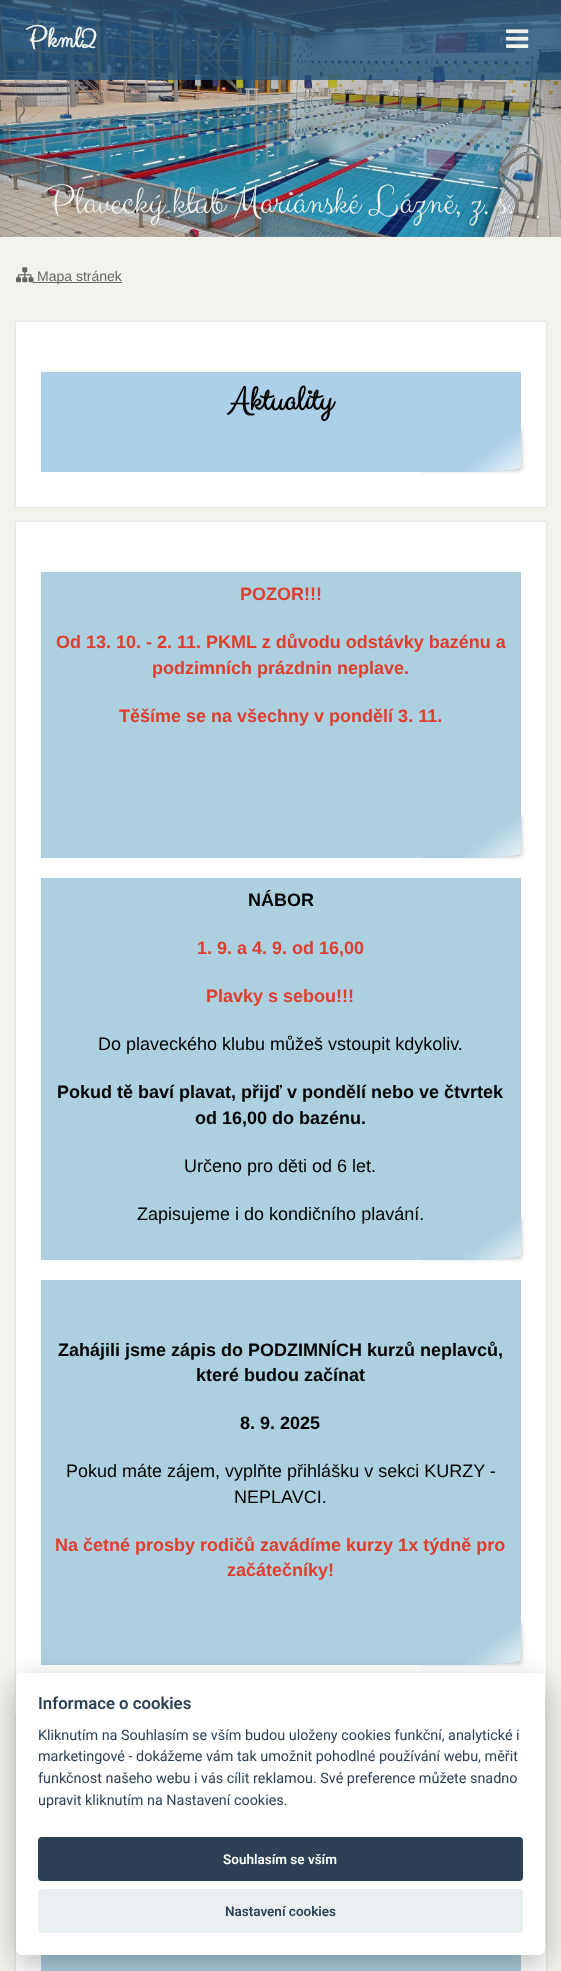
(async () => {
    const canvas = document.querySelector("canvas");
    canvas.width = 561;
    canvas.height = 1971;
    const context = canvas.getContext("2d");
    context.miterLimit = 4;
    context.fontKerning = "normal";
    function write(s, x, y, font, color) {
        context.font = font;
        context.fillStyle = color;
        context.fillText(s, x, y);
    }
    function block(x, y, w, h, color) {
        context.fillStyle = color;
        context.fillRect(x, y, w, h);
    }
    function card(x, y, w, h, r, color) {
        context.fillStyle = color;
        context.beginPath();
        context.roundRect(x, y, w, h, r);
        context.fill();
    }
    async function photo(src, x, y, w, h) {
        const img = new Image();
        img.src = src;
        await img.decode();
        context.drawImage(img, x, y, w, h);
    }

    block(0, 0, 561, 1971, "rgb(242, 243, 237)");
    await photo("media/2.png", 0, 0, 561, 237);
    block(0, 0, 561, 80, "rgba(34, 84, 123, 0.8)");
    write("Pkml2", 26, 48, "bold 30px Clicker Script", "rgb(242, 243, 237)");
    await photo("media/1.png", 506, 29, 23, 19);
    write("Plavecký klub Mariánské Lázně, z. s.", 47, 214, "40px Clicker Script", "rgb(242, 243, 237)");
    await photo("media/3.png", 16, 267, 18, 16);
    block(33, 282, 89, 1, "rgb(102, 102, 102)");
    write("Mapa stránek", 37, 281, "14px Liberation Sans", "rgb(102, 102, 102)");
    context.fillStyle = "rgb(211, 206, 200)";
    context.filter = "blur(1px)";
    context.beginPath();
    context.rect(16, 322, 530, 185);
    context.fill();
    context.filter = "none";
    block(16, 322, 530, 185, "rgb(255, 255, 255)");
    context.fillStyle = "rgba(0, 0, 0, 0.3)";
    context.filter = "blur(2.5px)";
    context.beginPath();
    context.rect(421, 430, 100, 40);
    context.fill();
    context.filter = "none";
    context.fillStyle = "rgb(172, 208, 233)";
    context.beginPath();
    context.moveTo(41, 372);
    context.lineTo(521, 372);
    context.lineTo(521, 467);
    context.bezierCurveTo(521, 470, 496, 472, 466, 472);
    context.lineTo(41, 472);
    context.closePath();
    context.fill();
    await photo("media/4.png", 462, 430, 59, 42);
    write("Aktuality", 229, 411, "bold 36px Clicker Script", "rgb(0, 0, 0)");
    context.fillStyle = "rgb(211, 206, 200)";
    context.filter = "blur(1px)";
    context.beginPath();
    context.rect(16, 522, 530, 1178);
    context.fill();
    context.filter = "none";
    block(16, 522, 530, 1178, "rgb(255, 255, 255)");
    context.fillStyle = "rgba(0, 0, 0, 0.3)";
    context.filter = "blur(2.5px)";
    context.beginPath();
    context.rect(421, 816, 100, 40);
    context.fill();
    context.filter = "none";
    context.fillStyle = "rgb(172, 208, 224)";
    context.beginPath();
    context.moveTo(41, 572);
    context.lineTo(521, 572);
    context.lineTo(521, 853);
    context.bezierCurveTo(521, 856, 496, 858, 466, 858);
    context.lineTo(41, 858);
    context.closePath();
    context.fill();
    await photo("media/5.png", 462, 816, 59, 42);
    write("POZOR!!!", 240, 600, "bold 18px Liberation Sans", "rgb(224, 62, 45)");
    write("Od 13. 10. - 2. 11. PKML z důvodu odstávky bazénu a", 56, 648, "bold 18px Liberation Sans", "rgb(224, 62, 45)");
    write("podzimních prázdnin neplave.", 152, 674, "bold 18px Liberation Sans", "rgb(224, 62, 45)");
    write("Těšíme se na všechny v pondělí 3. 11.", 119, 722, "bold 18px Liberation Sans", "rgb(224, 62, 45)");
    context.fillStyle = "rgba(0, 0, 0, 0.3)";
    context.filter = "blur(2.5px)";
    context.beginPath();
    context.rect(421, 1218, 100, 40);
    context.fill();
    context.filter = "none";
    context.fillStyle = "rgb(172, 208, 224)";
    context.beginPath();
    context.moveTo(41, 878);
    context.lineTo(521, 878);
    context.lineTo(521, 1255);
    context.bezierCurveTo(521, 1258, 496, 1260, 466, 1260);
    context.lineTo(41, 1260);
    context.closePath();
    context.fill();
    await photo("media/5.png", 462, 1218, 59, 42);
    write("NÁBOR", 248, 906, "bold 18px Liberation Sans", "rgb(0, 0, 0)");
    write("1. 9. a 4. 9. od 16,00", 197, 954, "bold 18px Liberation Sans", "rgb(224, 62, 45)");
    write("Plavky s sebou!!!", 206, 1002, "bold 18px Liberation Sans", "rgb(224, 62, 45)");
    write("Do plaveckého klubu můžeš vstoupit kdykoliv.", 98, 1050, "18px Liberation Sans", "rgb(0, 0, 0)");
    write("Pokud tě baví plavat, přijď v pondělí nebo ve čtvrtek", 57, 1098, "bold 18px Liberation Sans", "rgb(0, 0, 0)");
    write("od 16,00 do bazénu.", 195, 1124, "bold 18px Liberation Sans", "rgb(0, 0, 0)");
    write("Určeno pro děti od 6 let.", 184, 1172, "18px Liberation Sans", "rgb(0, 0, 0)");
    write("Zapisujeme i do kondičního plavání.", 137, 1220, "18px Liberation Sans", "rgb(0, 0, 0)");
    context.fillStyle = "rgba(0, 0, 0, 0.3)";
    context.filter = "blur(2.5px)";
    context.beginPath();
    context.rect(421, 1623, 100, 40);
    context.fill();
    context.filter = "none";
    context.fillStyle = "rgb(172, 208, 224)";
    context.beginPath();
    context.moveTo(41, 1280);
    context.lineTo(521, 1280);
    context.lineTo(521, 1660);
    context.bezierCurveTo(521, 1663, 496, 1665, 466, 1665);
    context.lineTo(41, 1665);
    context.closePath();
    context.fill();
    await photo("media/5.png", 462, 1623, 59, 42);
    write("Zahájili jsme zápis do PODZIMNÍCH kurzů neplavců,", 58, 1356, "bold 18px Liberation Sans", "rgb(0, 0, 0)");
    write("které budou začínat", 196, 1381, "bold 18px Liberation Sans", "rgb(0, 0, 0)");
    write("8. 9. 2025", 240, 1429, "bold 18px Liberation Sans", "rgb(0, 0, 0)");
    write("Pokud máte zájem, vyplňte přihlášku v sekci KURZY -", 66, 1477, "18px Liberation Sans", "rgb(0, 0, 0)");
    write("NEPLAVCI.", 234, 1503, "18px Liberation Sans", "rgb(0, 0, 0)");
    write("Na četné prosby rodičů zavádíme kurzy 1x týdně pro", 55, 1551, "bold 18px Liberation Sans", "rgb(224, 62, 45)");
    write("začátečníky!", 227, 1576, "bold 18px Liberation Sans", "rgb(224, 62, 45)");
    context.fillStyle = "rgb(211, 206, 200)";
    context.filter = "blur(1px)";
    context.beginPath();
    context.rect(16, 1715, 530, 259);
    context.fill();
    context.filter = "none";
    block(16, 1715, 530, 256, "rgb(255, 255, 255)");
    context.fillStyle = "rgb(172, 208, 224)";
    context.beginPath();
    context.moveTo(41, 1765);
    context.lineTo(521, 1765);
    context.lineTo(521, 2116);
    context.bezierCurveTo(521, 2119, 496, 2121, 466, 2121);
    context.lineTo(41, 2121);
    context.closePath();
    context.fill();
    context.fillStyle = "rgba(2, 2, 3, 0.28)";
    context.filter = "blur(15px)";
    context.beginPath();
    context.roundRect(16, 1683, 529, 282, 6);
    context.fill();
    context.filter = "none";
    card(16, 1673, 529, 282, 6, "rgb(255, 255, 255)");
    write("Informace o cookies", 38, 1709, "600 16.75px Roboto", "rgb(45, 65, 86)");
    write("Kliknutím na Souhlasím se vším budou uloženy cookies funkční, analytické i", 38, 1740, "14.4px Roboto", "rgb(45, 65, 86)");
    write("marketingové - dokážeme vám tak umožnit pohodlné používání webu, měřit", 38, 1761, "14.4px Roboto", "rgb(45, 65, 86)");
    write("funkčnost našeho webu i vás cílit reklamou. Své preference můžete snadno", 38, 1783, "14.4px Roboto", "rgb(45, 65, 86)");
    write("upravit kliknutím na Nastavení cookies.", 38, 1805, "14.4px Roboto", "rgb(45, 65, 86)");
    card(38, 1837, 485, 44, 4, "rgb(45, 65, 86)");
    write("Souhlasím se vším", 223, 1864, "600 13.5px Roboto", "rgb(255, 255, 255)");
    card(38, 1889, 485, 44, 4, "rgb(234, 239, 242)");
    write("Nastavení cookies", 225, 1916, "600 13.5px Roboto", "rgb(45, 65, 86)");
})();
